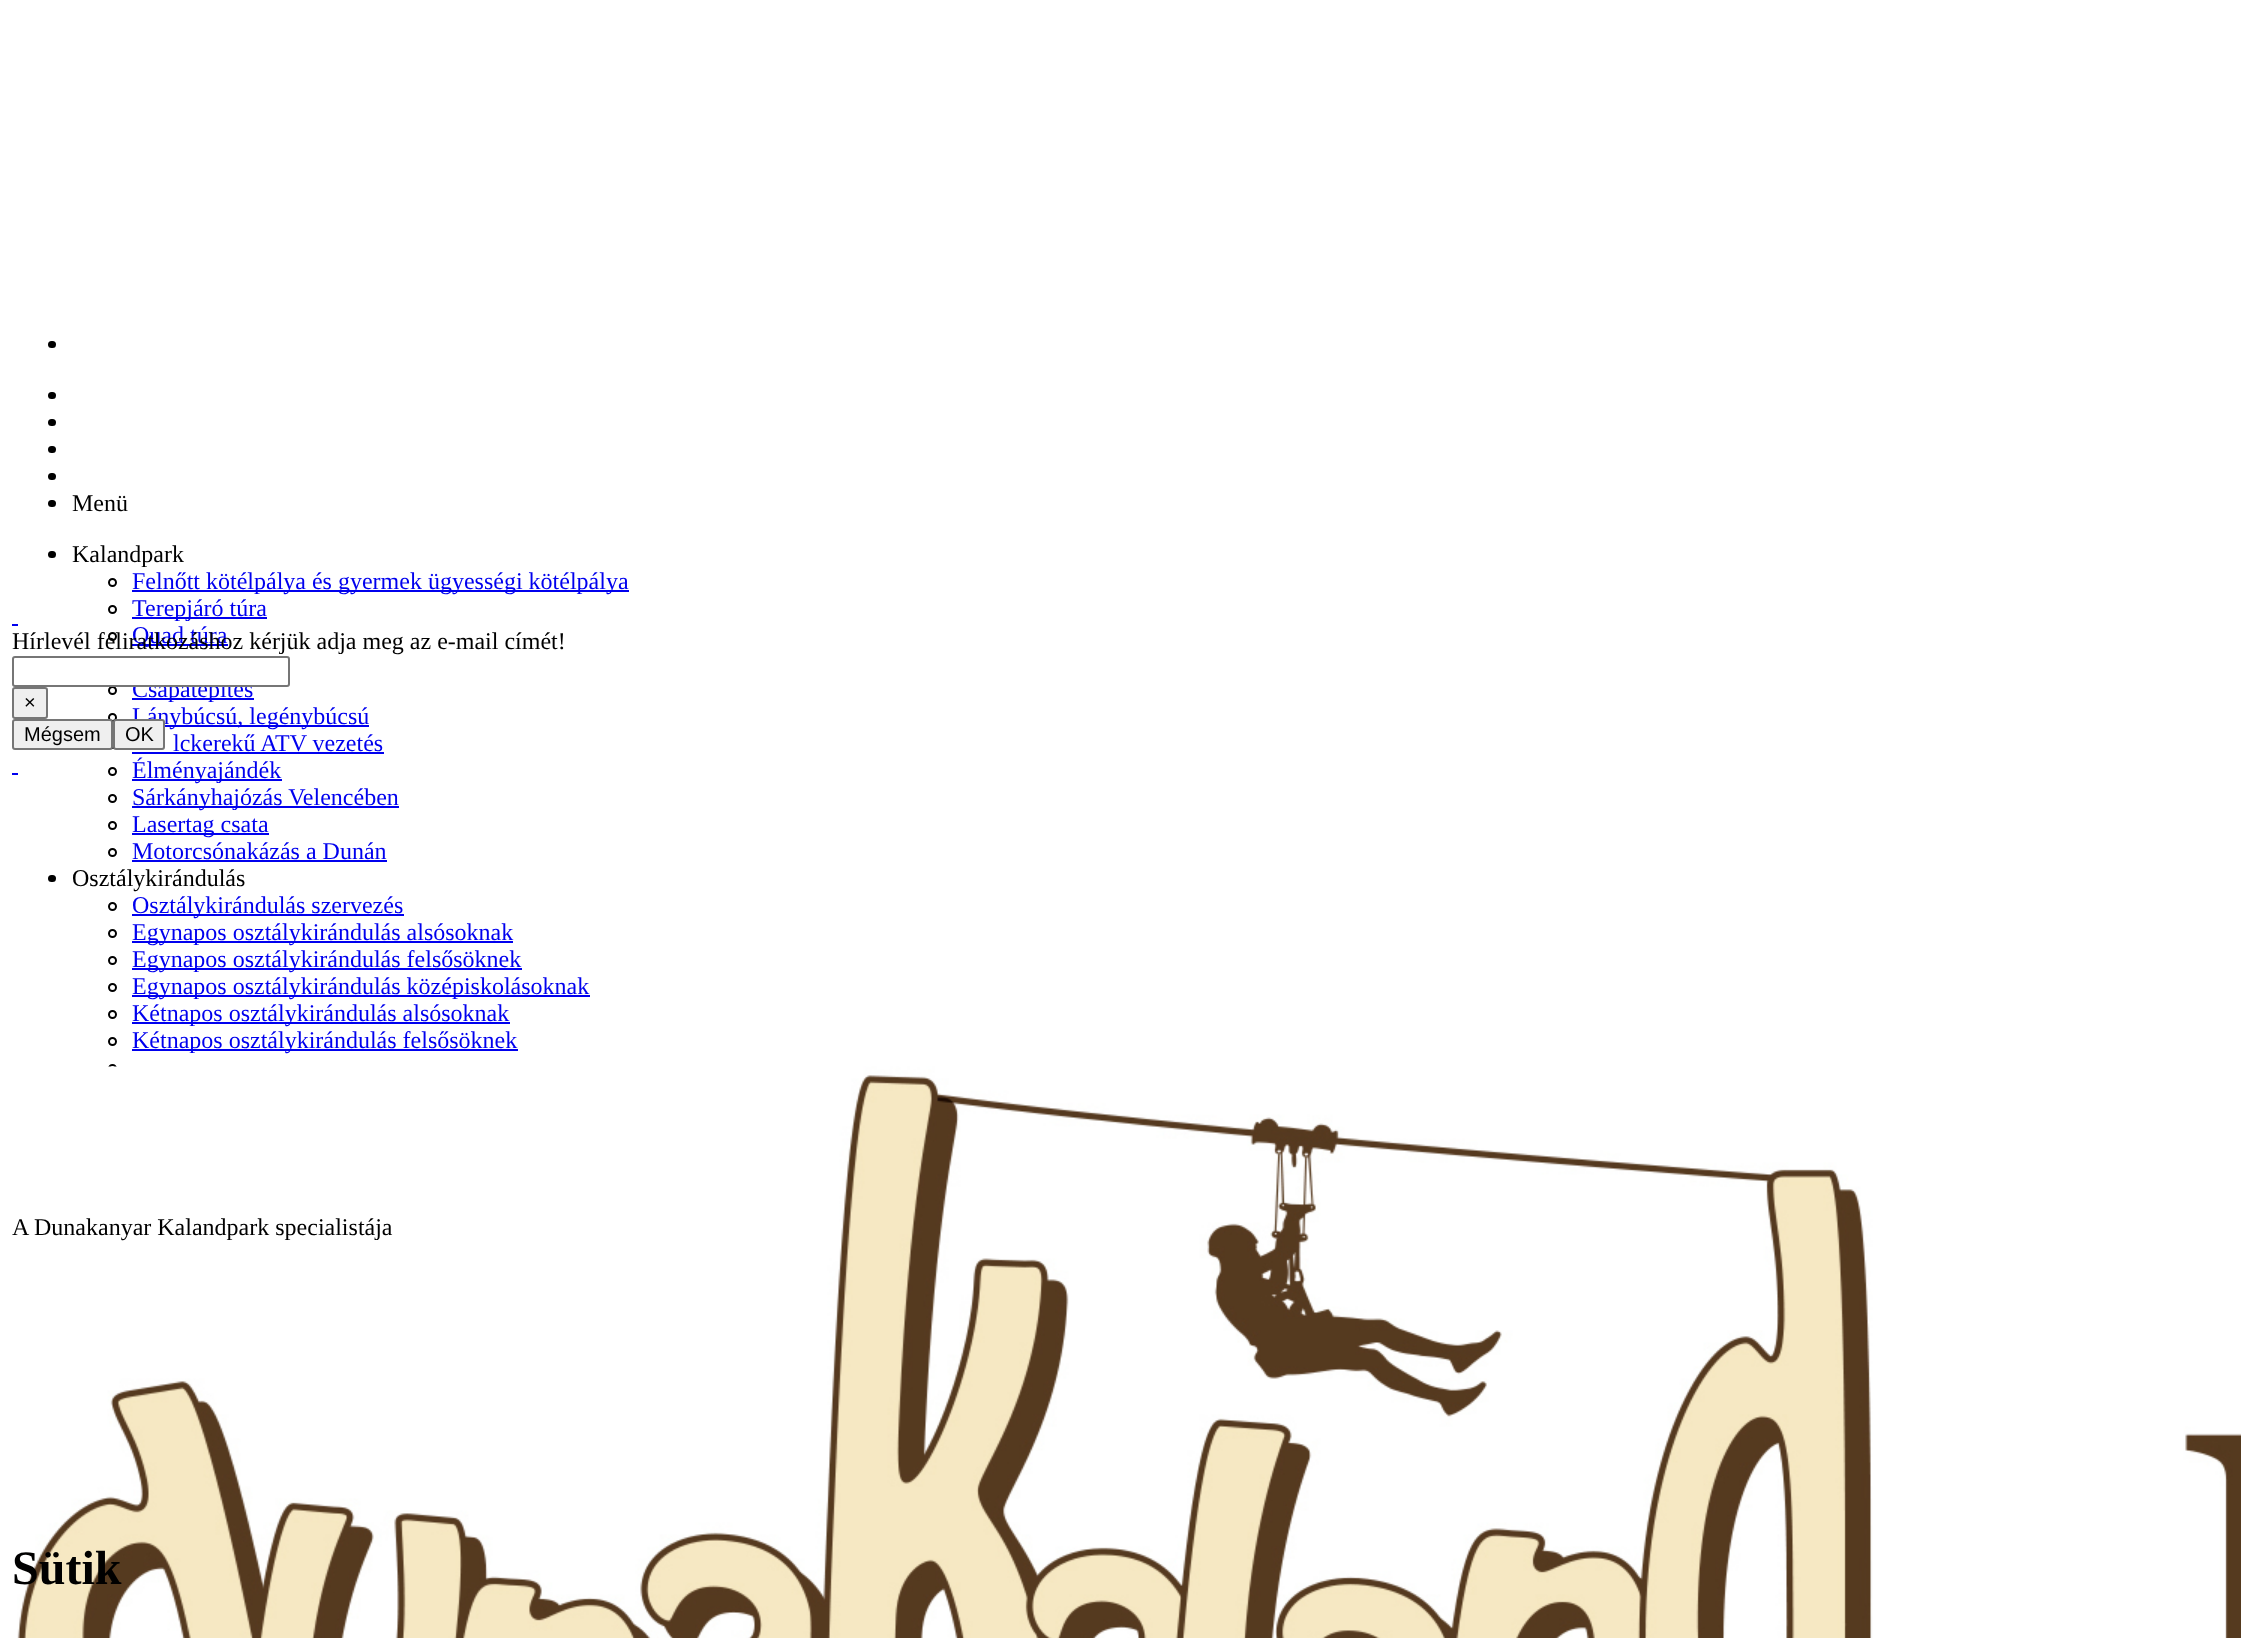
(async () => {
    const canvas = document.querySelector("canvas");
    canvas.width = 2241;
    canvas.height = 1638;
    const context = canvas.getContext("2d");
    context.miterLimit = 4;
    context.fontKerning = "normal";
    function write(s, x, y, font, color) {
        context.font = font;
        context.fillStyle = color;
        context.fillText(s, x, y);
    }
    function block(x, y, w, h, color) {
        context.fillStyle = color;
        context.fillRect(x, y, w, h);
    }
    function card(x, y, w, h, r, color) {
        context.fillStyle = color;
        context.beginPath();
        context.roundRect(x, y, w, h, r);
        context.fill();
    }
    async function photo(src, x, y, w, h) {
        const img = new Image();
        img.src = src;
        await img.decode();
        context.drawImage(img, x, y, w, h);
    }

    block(0, 0, 2241, 1638, "rgb(255, 255, 255)");
    card(48, 341, 8, 7, 3.5, "rgb(0, 0, 0)");
    card(48, 392, 8, 7, 3.5, "rgb(0, 0, 0)");
    card(48, 419, 8, 7, 3.5, "rgb(0, 0, 0)");
    card(48, 446, 8, 7, 3.5, "rgb(0, 0, 0)");
    card(48, 473, 8, 7, 3.5, "rgb(0, 0, 0)");
    card(48, 500, 8, 7, 3.5, "rgb(0, 0, 0)");
    write("Menü", 72, 511, "24px Liberation Serif", "rgb(0, 0, 0)");
    card(48, 551, 8, 7, 3.5, "rgb(0, 0, 0)");
    write("Kalandpark", 72, 562, "24px Liberation Serif", "rgb(0, 0, 0)");
    context.beginPath();
    context.arc(112.5, 582.5, 3.5, 0, Math.PI * 2);
    context.strokeStyle = "rgb(0, 0, 0)";
    context.lineWidth = 2;
    context.stroke();
    block(132, 590, 497, 2, "rgb(0, 0, 238)");
    write("Felnőtt kötélpálya és gyermek ügyességi kötélpálya", 132, 589, "24px Liberation Serif", "rgb(0, 0, 238)");
    context.beginPath();
    context.arc(112.5, 609.5, 3.5, 0, Math.PI * 2);
    context.stroke();
    block(132, 617, 135, 2, "rgb(0, 0, 238)");
    write("Terepjáró túra", 132, 616, "24px Liberation Serif", "rgb(0, 0, 238)");
    context.beginPath();
    context.arc(112.5, 636.5, 3.5, 0, Math.PI * 2);
    context.stroke();
    block(132, 644, 96, 2, "rgb(0, 0, 238)");
    write("Quad túra", 132, 643, "24px Liberation Serif", "rgb(0, 0, 238)");
    context.beginPath();
    context.arc(112.5, 690.5, 3.5, 0, Math.PI * 2);
    context.stroke();
    block(132, 698, 122, 2, "rgb(0, 0, 238)");
    write("Csapatépítés", 132, 697, "24px Liberation Serif", "rgb(0, 0, 238)");
    context.beginPath();
    context.arc(112.5, 717.5, 3.5, 0, Math.PI * 2);
    context.stroke();
    block(165, 725, 204, 2, "rgb(0, 0, 238)");
    write("Lánybúcsú, legénybúcsú", 132, 724, "24px Liberation Serif", "rgb(0, 0, 238)");
    context.beginPath();
    context.arc(112.5, 744.5, 3.5, 0, Math.PI * 2);
    context.stroke();
    write("lckerekű ATV vezetés", 173, 751, "24px Liberation Serif", "rgb(0, 0, 238)");
    block(132, 752, 252, 2, "rgb(0, 0, 238)");
    context.beginPath();
    context.arc(112.5, 771.5, 3.5, 0, Math.PI * 2);
    context.stroke();
    block(132, 779, 150, 2, "rgb(0, 0, 238)");
    write("Élményajándék", 132, 778, "24px Liberation Serif", "rgb(0, 0, 238)");
    context.beginPath();
    context.arc(112.5, 798.5, 3.5, 0, Math.PI * 2);
    context.stroke();
    block(132, 806, 267, 2, "rgb(0, 0, 238)");
    write("Sárkányhajózás Velencében", 132, 805, "24px Liberation Serif", "rgb(0, 0, 238)");
    context.beginPath();
    context.arc(112.5, 825.5, 3.5, 0, Math.PI * 2);
    context.stroke();
    block(132, 833, 137, 2, "rgb(0, 0, 238)");
    write("Lasertag csata", 132, 832, "24px Liberation Serif", "rgb(0, 0, 238)");
    context.beginPath();
    context.arc(112.5, 852.5, 3.5, 0, Math.PI * 2);
    context.stroke();
    write("Motorcsónakázás a Dunán", 132, 859, "24px Liberation Serif", "rgb(0, 0, 238)");
    block(132, 860, 255, 2, "rgb(0, 0, 238)");
    card(48, 875, 8, 7, 3.5, "rgb(0, 0, 0)");
    write("Osztálykirándulás", 72, 886, "24px Liberation Serif", "rgb(0, 0, 0)");
    context.beginPath();
    context.arc(112.5, 906.5, 3.5, 0, Math.PI * 2);
    context.stroke();
    block(132, 914, 272, 2, "rgb(0, 0, 238)");
    write("Osztálykirándulás szervezés", 132, 913, "24px Liberation Serif", "rgb(0, 0, 238)");
    context.beginPath();
    context.arc(112.5, 933.5, 3.5, 0, Math.PI * 2);
    context.stroke();
    block(132, 941, 381, 2, "rgb(0, 0, 238)");
    write("Egynapos osztálykirándulás alsósoknak", 132, 940, "24px Liberation Serif", "rgb(0, 0, 238)");
    context.beginPath();
    context.arc(112.5, 960.5, 3.5, 0, Math.PI * 2);
    context.stroke();
    block(132, 968, 390, 2, "rgb(0, 0, 238)");
    write("Egynapos osztálykirándulás felsősöknek", 132, 967, "24px Liberation Serif", "rgb(0, 0, 238)");
    context.beginPath();
    context.arc(112.5, 987.5, 3.5, 0, Math.PI * 2);
    context.stroke();
    block(132, 995, 458, 2, "rgb(0, 0, 238)");
    write("Egynapos osztálykirándulás középiskolásoknak", 132, 994, "24px Liberation Serif", "rgb(0, 0, 238)");
    context.beginPath();
    context.arc(112.5, 1014.5, 3.5, 0, Math.PI * 2);
    context.stroke();
    block(132, 1022, 378, 2, "rgb(0, 0, 238)");
    write("Kétnapos osztálykirándulás alsósoknak", 132, 1021, "24px Liberation Serif", "rgb(0, 0, 238)");
    context.beginPath();
    context.arc(112.5, 1041.5, 3.5, 0, Math.PI * 2);
    context.stroke();
    block(132, 1049, 386, 2, "rgb(0, 0, 238)");
    write("Kétnapos osztálykirándulás felsősöknek", 132, 1048, "24px Liberation Serif", "rgb(0, 0, 238)");
    context.beginPath();
    context.arc(112.5, 1068.5, 3.5, 0, Math.PI * 2);
    context.stroke();
    await photo("media/1.png", 17, 1066, 2224, 572);
    write("A Dunakanyar Kalandpark specialistája", 12, 1235, "24px Liberation Serif", "rgb(0, 0, 0)");
    write("Sütik", 12, 1584, "bold 48px Liberation Serif", "rgb(0, 0, 0)");
    block(12, 624, 6, 2, "rgb(0, 0, 238)");
    write("Hírlevél feliratkozáshoz kérjük adja meg az e-mail címét!", 12, 649, "24px Liberation Serif", "rgb(0, 0, 0)");
    context.fillStyle = "rgb(255, 255, 255)";
    context.beginPath();
    context.roundRect(13, 657, 276, 29, 2);
    context.fill();
    context.strokeStyle = "rgb(118, 118, 118)";
    context.stroke();
    context.fillStyle = "rgb(239, 239, 239)";
    context.beginPath();
    context.roundRect(13, 688, 34, 30, 2);
    context.fill();
    context.stroke();
    write("×", 24, 709, "20px Liberation Sans", "rgb(0, 0, 0)");
    context.fillStyle = "rgb(239, 239, 239)";
    context.beginPath();
    context.roundRect(13, 720, 99, 29, 2);
    context.fill();
    context.stroke();
    write("Mégsem", 24, 741, "20px Liberation Sans", "rgb(0, 0, 0)");
    context.fillStyle = "rgb(239, 239, 239)";
    context.beginPath();
    context.roundRect(114, 720, 50, 29, 2);
    context.fill();
    context.stroke();
    write("OK", 125, 741, "20px Liberation Sans", "rgb(0, 0, 0)");
    block(12, 773, 6, 2, "rgb(0, 0, 238)");
})();
